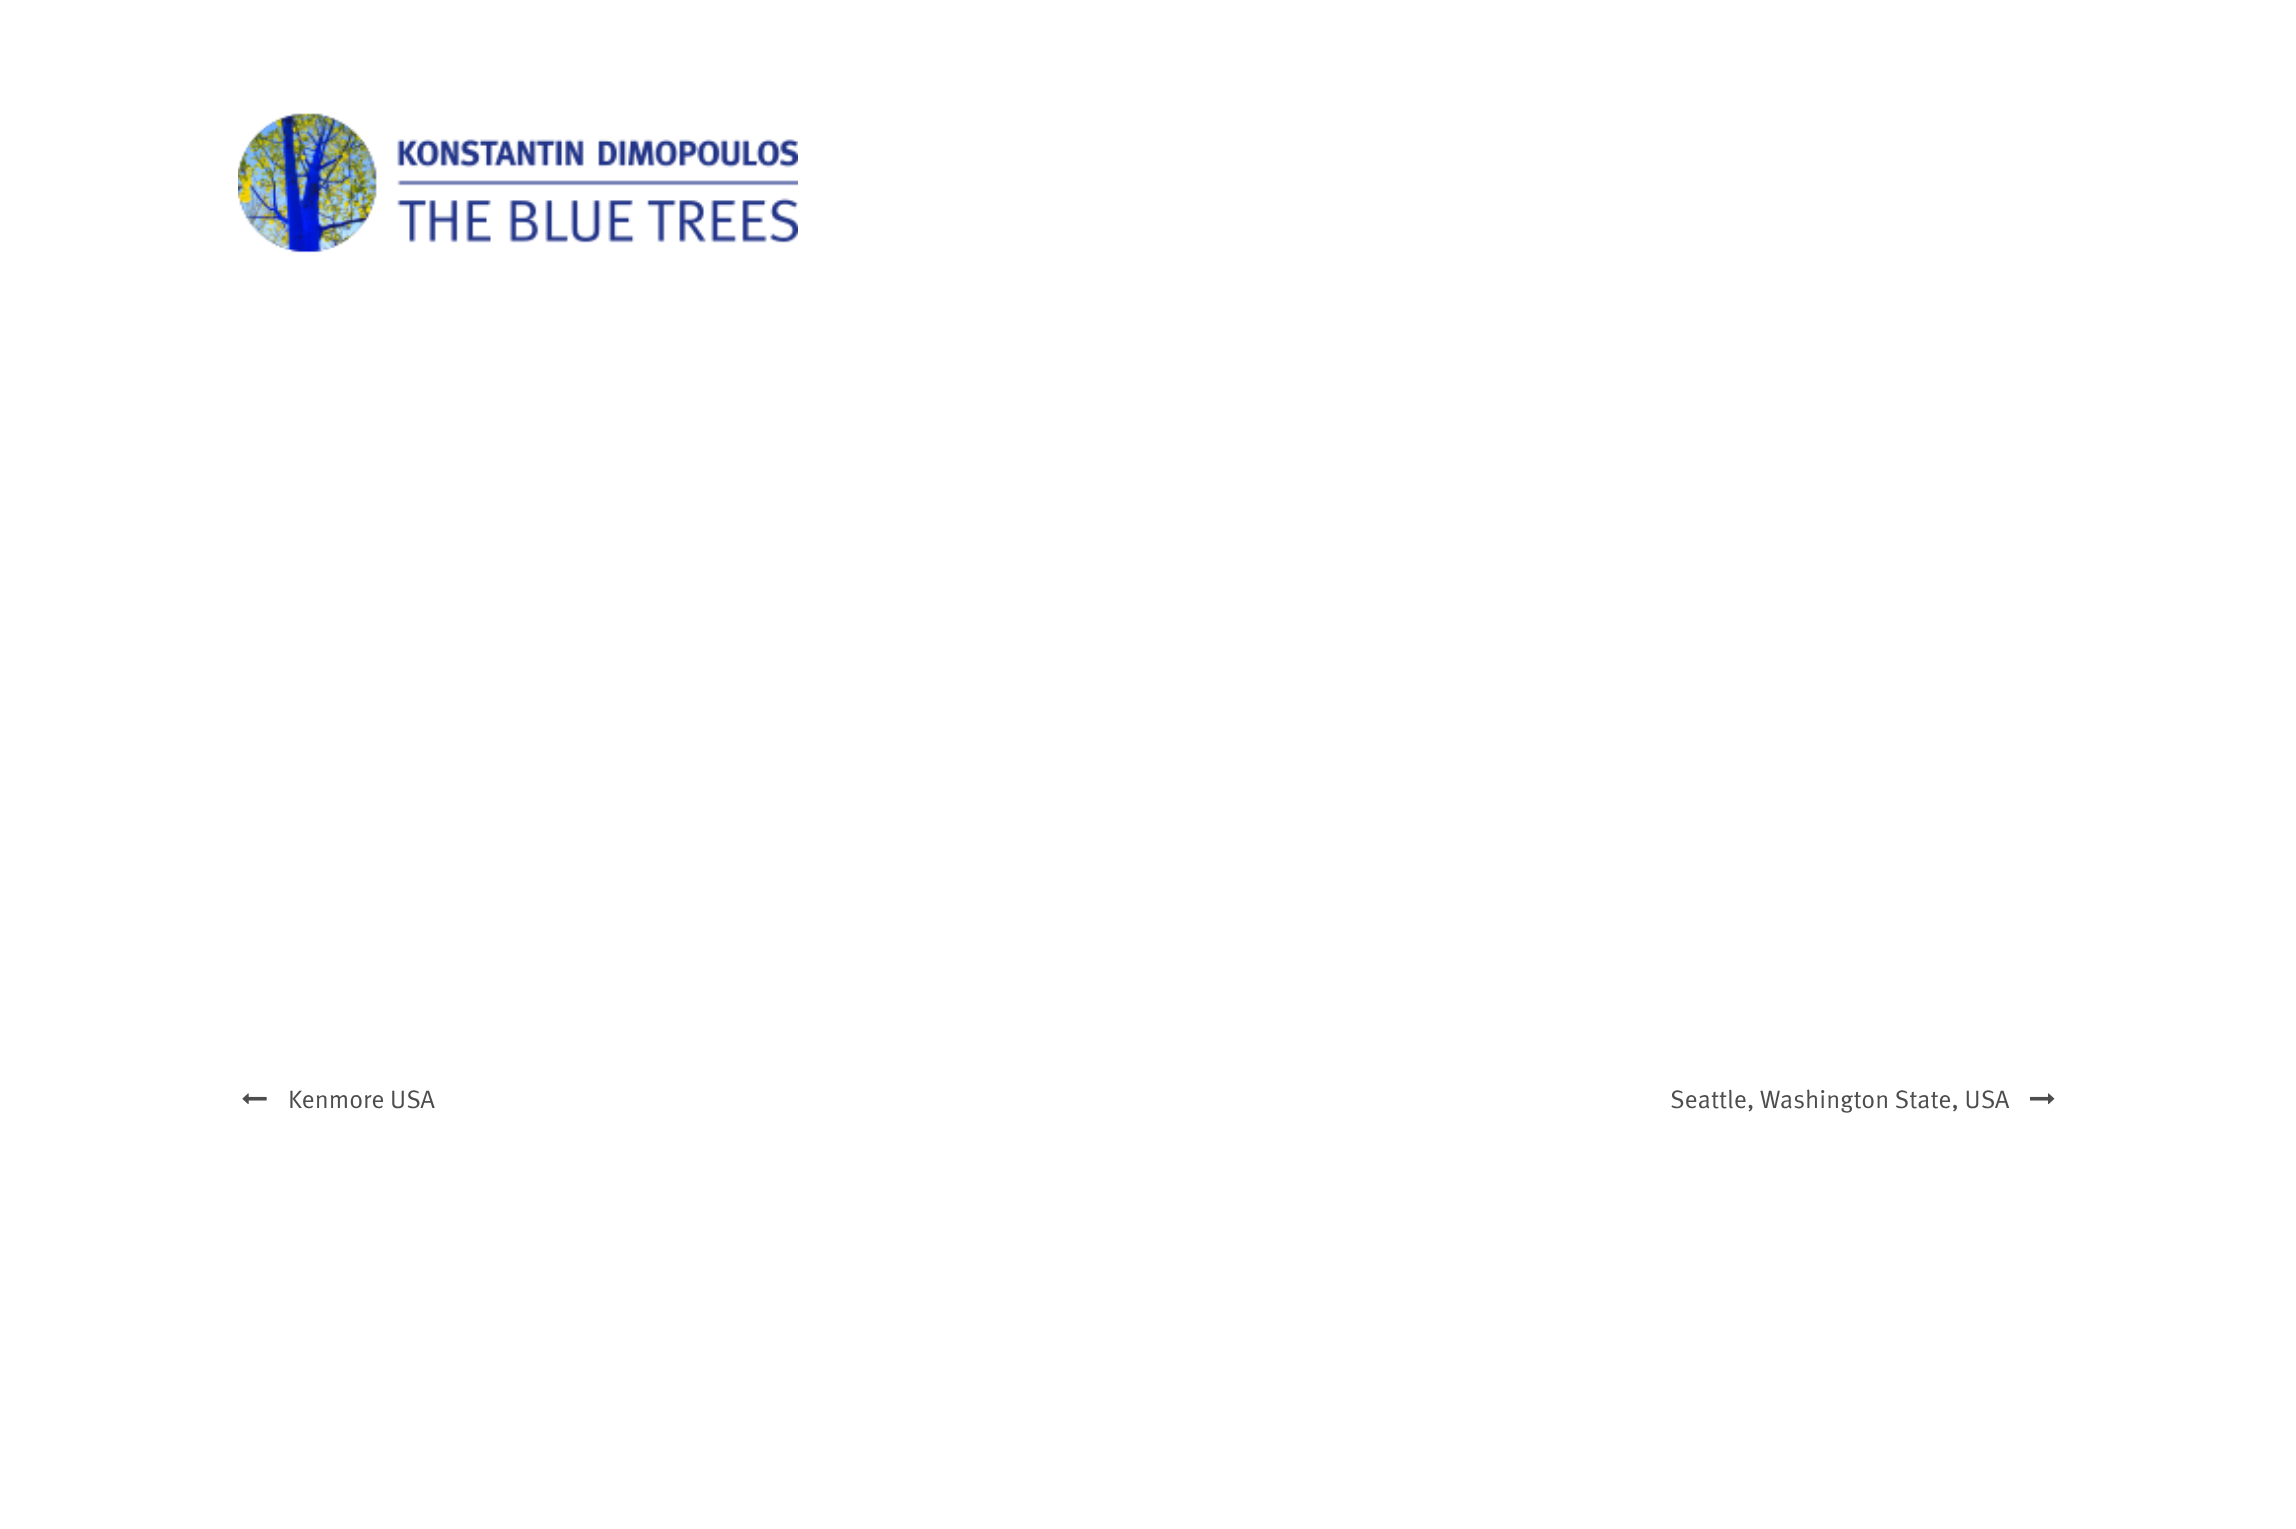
(async () => {
    const canvas = document.querySelector("canvas");
    canvas.width = 2296;
    canvas.height = 1529;
    const context = canvas.getContext("2d");
    context.miterLimit = 4;
    context.fontKerning = "normal";
    function write(s, x, y, font, color) {
        context.font = font;
        context.fillStyle = color;
        context.fillText(s, x, y);
    }
    function block(x, y, w, h, color) {
        context.fillStyle = color;
        context.fillRect(x, y, w, h);
    }
    async function photo(src, x, y, w, h) {
        const img = new Image();
        img.src = src;
        await img.decode();
        context.drawImage(img, x, y, w, h);
    }

    block(0, 0, 2296, 1529, "rgb(255, 255, 255)");
    await photo("media/1.png", 238, 113, 560, 140);
    await photo("media/2.png", 242, 1093, 25, 12);
    write("Kenmore USA", 288, 1108, "25.25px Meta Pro", "rgb(77, 77, 77)");
    write("Seattle, Washington State, USA", 1670, 1108, "25.25px Meta Pro", "rgb(77, 77, 77)");
    await photo("media/3.png", 2030, 1093, 25, 12);
})();
